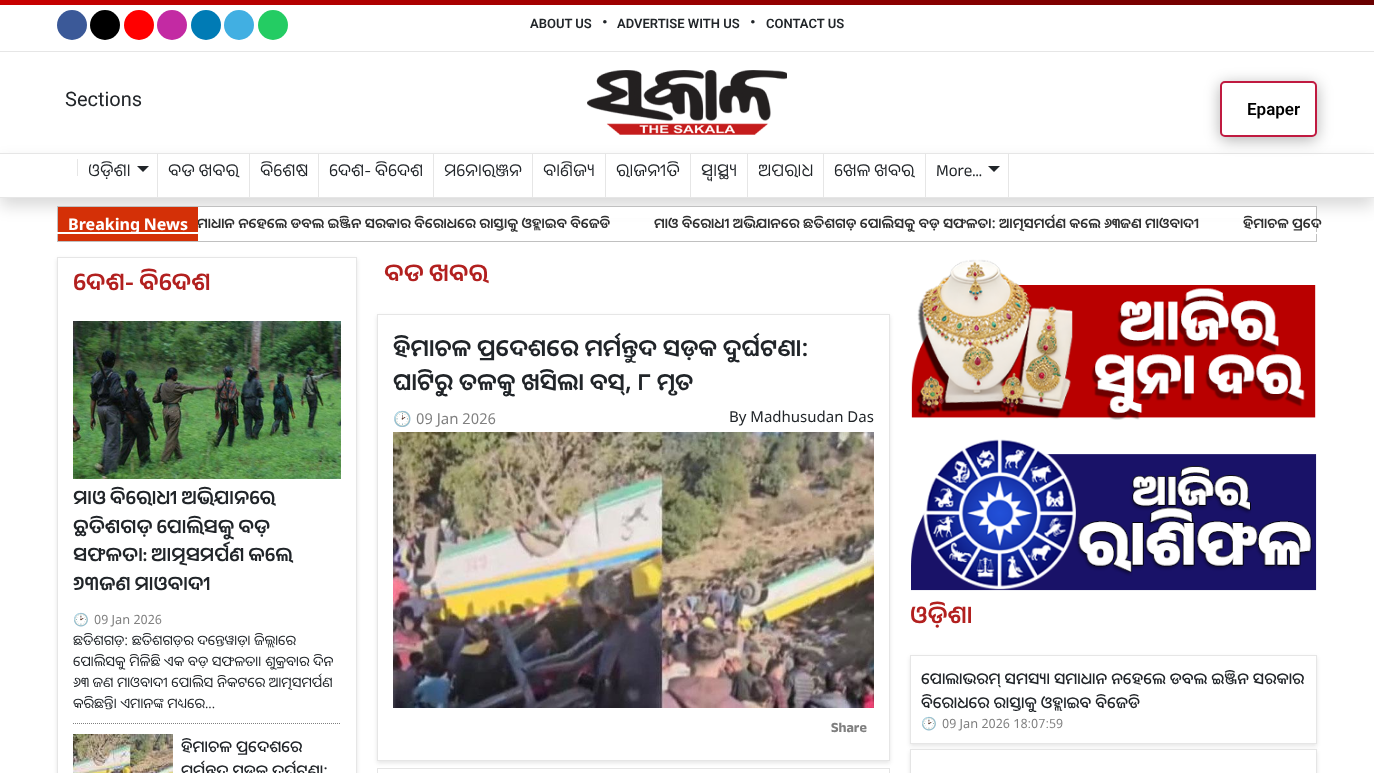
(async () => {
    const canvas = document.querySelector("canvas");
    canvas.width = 1374;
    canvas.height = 773;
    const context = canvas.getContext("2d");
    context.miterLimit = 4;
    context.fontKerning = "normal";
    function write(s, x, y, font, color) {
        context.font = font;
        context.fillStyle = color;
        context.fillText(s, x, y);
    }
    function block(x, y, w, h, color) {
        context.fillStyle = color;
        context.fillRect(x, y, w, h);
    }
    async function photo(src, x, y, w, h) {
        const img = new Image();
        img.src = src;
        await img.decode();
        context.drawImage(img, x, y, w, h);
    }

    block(0, 0, 1374, 773, "rgb(255, 255, 255)");
    await photo("media/1.png", 0, 0, 1374, 5);
    block(0, 51, 1374, 1, "rgb(230, 230, 230)");
    context.fillStyle = "rgb(59, 89, 152)";
    context.beginPath();
    context.arc(72, 25, 15, 0, Math.PI * 2);
    context.fill();
    context.fillStyle = "rgb(0, 0, 0)";
    context.beginPath();
    context.arc(105, 25, 15, 0, Math.PI * 2);
    context.fill();
    context.fillStyle = "rgb(255, 0, 0)";
    context.beginPath();
    context.arc(139, 25, 15, 0, Math.PI * 2);
    context.fill();
    context.fillStyle = "rgb(195, 42, 163)";
    context.beginPath();
    context.arc(172, 25, 15, 0, Math.PI * 2);
    context.fill();
    context.fillStyle = "rgb(0, 123, 181)";
    context.beginPath();
    context.arc(206, 25, 15, 0, Math.PI * 2);
    context.fill();
    context.fillStyle = "rgb(65, 175, 226)";
    context.beginPath();
    context.arc(239, 25, 15, 0, Math.PI * 2);
    context.fill();
    context.fillStyle = "rgb(36, 204, 99)";
    context.beginPath();
    context.arc(273, 25, 15, 0, Math.PI * 2);
    context.fill();
    write("ABOUT US", 530, 28, "600 13px Roboto", "rgb(33, 37, 41)");
    write("•", 602, 28, "17px Roboto", "rgb(33, 37, 41)");
    write("ADVERTISE WITH US", 617, 28, "600 13px Roboto", "rgb(33, 37, 41)");
    write("•", 750, 28, "17px Roboto", "rgb(33, 37, 41)");
    write("CONTACT US", 766, 28, "600 13px Roboto", "rgb(33, 37, 41)");
    write("Sections", 65, 106, "20px Roboto", "rgb(33, 37, 41)");
    await photo("media/2.png", 587, 70, 200, 65);
    context.save();
    context.beginPath();
    context.moveTo(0, 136);
    context.lineTo(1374, 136);
    context.lineTo(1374, 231);
    context.lineTo(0, 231);
    context.closePath();
    context.moveTo(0, 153);
    context.lineTo(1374, 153);
    context.lineTo(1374, 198);
    context.lineTo(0, 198);
    context.closePath();
    context.clip("evenodd");
    context.fillStyle = "rgba(0, 0, 0, 0.15)";
    context.filter = "blur(8px)";
    context.beginPath();
    context.rect(0, 161, 1374, 45);
    context.fill();
    context.filter = "none";
    context.restore();
    block(0, 153, 1374, 1, "rgb(230, 230, 230)");
    context.fillStyle = "rgba(0, 0, 0, 0.3)";
    context.filter = "blur(7.5px)";
    context.beginPath();
    context.roundRect(1220, 84, 97, 56, 5);
    context.fill();
    context.filter = "none";
    context.fillStyle = "rgb(255, 255, 255)";
    context.beginPath();
    context.roundRect(1221, 82, 95, 54, 4);
    context.fill();
    context.strokeStyle = "rgb(192, 26, 64)";
    context.lineWidth = 2;
    context.stroke();
    write("Epaper", 1247, 115, "600 17px Roboto", "rgb(0, 0, 0)");
    block(0, 197, 1374, 1, "rgb(230, 230, 230)");
    block(77, 159, 1, 17, "rgb(230, 230, 230)");
    block(157, 154, 1, 43, "rgb(230, 230, 230)");
    write("ଓଡ଼ିଶା", 88, 176, "17px Anek Odia", "rgb(33, 37, 41)");
    context.beginPath();
    context.moveTo(137, 166);
    context.lineTo(149, 166);
    context.lineTo(143, 172);
    context.closePath();
    context.fill();
    block(249, 154, 1, 43, "rgb(230, 230, 230)");
    write("ବଡ ଖବର", 168, 176, "17px Anek Odia", "rgb(33, 37, 41)");
    block(318, 154, 1, 43, "rgb(230, 230, 230)");
    write("ବିଶେଷ", 260, 176, "17px Anek Odia", "rgb(33, 37, 41)");
    block(433, 154, 1, 43, "rgb(230, 230, 230)");
    write("ଦେଶ- ବିଦେଶ", 329, 176, "17px Anek Odia", "rgb(33, 37, 41)");
    block(532, 154, 1, 43, "rgb(230, 230, 230)");
    write("ମନୋରଞ୍ଜନ", 444, 176, "17px Anek Odia", "rgb(33, 37, 41)");
    block(605, 154, 1, 43, "rgb(230, 230, 230)");
    write("ବାଣିଜ୍ୟ", 543, 176, "17px Anek Odia", "rgb(33, 37, 41)");
    block(690, 154, 1, 43, "rgb(230, 230, 230)");
    write("ରାଜନୀତି", 616, 176, "17px Anek Odia", "rgb(33, 37, 41)");
    block(747, 154, 1, 43, "rgb(230, 230, 230)");
    write("ସ୍ଵାସ୍ଥ୍ୟ", 701, 176, "17px Anek Odia", "rgb(33, 37, 41)");
    block(823, 154, 1, 43, "rgb(230, 230, 230)");
    write("ଅପରାଧ", 758, 176, "17px Anek Odia", "rgb(33, 37, 41)");
    block(925, 154, 1, 43, "rgb(230, 230, 230)");
    write("ଖେଳ ଖବର", 834, 176, "17px Anek Odia", "rgb(33, 37, 41)");
    block(1008, 154, 1, 43, "rgb(230, 230, 230)");
    write("More...", 936, 176, "17px Anek Odia", "rgb(33, 37, 41)");
    context.beginPath();
    context.moveTo(988, 166);
    context.lineTo(1000, 166);
    context.lineTo(994, 172);
    context.closePath();
    context.fill();
    context.strokeStyle = "rgb(192, 192, 192)";
    context.lineWidth = 1;
    context.strokeRect(57.5, 206.5, 1259, 35);
    block(198, 207, 1118, 11, "rgb(255, 255, 255)");
    write("ମାଧାନ ନହେଲେ ଡବଲ ଇଞ୍ଜିନ ସରକାର ବିରୋଧରେ ରାସ୍ତାକୁ ଓହ୍ଲାଇବ ବିଜେଡି", 197, 228, "600 14px Noto Sans Oriya", "rgb(48, 48, 48)");
    block(58, 207, 140, 34, "rgb(212, 48, 7)");
    write("Breaking News", 68, 230, "bold 16px Noto Sans Oriya", "rgb(255, 255, 255)");
    write("ମାଓ ବିରୋଧୀ ଅଭିଯାନରେ ଛତିଶଗଡ଼ ପୋଲିସକୁ ବଡ଼ ସଫଳତା: ଆତ୍ମସମର୍ପଣ କଲେ ୬୩ଜଣ ମାଓବାଦୀ", 654, 228, "600 14px Noto Sans Oriya", "rgb(48, 48, 48)");
    write("ହିମାଚଳ ପ୍ରଦେ", 1243, 228, "600 14px Noto Sans Oriya", "rgb(48, 48, 48)");
    block(57, 232, 1260, 2, "rgb(255, 255, 255)");
    context.save();
    context.beginPath();
    context.moveTo(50, 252);
    context.lineTo(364, 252);
    context.lineTo(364, 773);
    context.lineTo(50, 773);
    context.closePath();
    context.moveTo(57, 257);
    context.lineTo(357, 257);
    context.lineTo(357, 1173);
    context.lineTo(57, 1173);
    context.closePath();
    context.clip("evenodd");
    context.fillStyle = "rgba(0, 0, 0, 0.1)";
    context.filter = "blur(2px)";
    context.beginPath();
    context.rect(57, 259, 300, 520);
    context.fill();
    context.filter = "none";
    context.restore();
    context.strokeStyle = "rgb(230, 230, 230)";
    context.strokeRect(57.5, 257.5, 299, 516);
    write("ଦେଶ- ବିଦେଶ", 73, 290, "600 24px Anek Odia", "rgb(178, 32, 31)");
    context.beginPath();
    context.moveTo(73, 723.5);
    context.lineTo(341, 723.5);
    context.strokeStyle = "rgb(128, 128, 128)";
    context.setLineDash([1, 1]);
    context.stroke();
    await photo("media/3.png", 73, 321, 268, 158);
    write("ମାଓ ବିରୋଧୀ ଅଭିଯାନରେ", 73, 504, "600 19.25px Anek Odia", "rgb(33, 37, 41)");
    write("ଛତିଶଗଡ଼ ପୋଲିସକୁ ବଡ଼", 73, 533, "600 19.25px Anek Odia", "rgb(33, 37, 41)");
    write("ସଫଳତା: ଆତ୍ମସମର୍ପଣ କଲେ", 73, 561, "600 19.25px Anek Odia", "rgb(33, 37, 41)");
    write("୬୩ଜଣ ମାଓବାଦୀ", 73, 590, "600 19.25px Anek Odia", "rgb(33, 37, 41)");
    write("🕑", 73, 624, "12.75px Noto Color Emoji", "rgb(128, 128, 128)");
    write("09 Jan 2026", 94, 624, "12.75px Noto Sans Oriya", "rgb(128, 128, 128)");
    write("ଛତିଶଗଡ଼: ଛତିଶଗଡ଼ର ଦନ୍ତେୱାଡ଼ା ଜିଲ୍ଲାରେ", 73, 645, "14px Noto Sans Oriya", "rgb(33, 37, 41)");
    write("ପୋଲିସକୁ ମିଳିଛି ଏକ ବଡ଼ ସଫଳତା। ଶୁକ୍ରବାର ଦିନ", 73, 666, "14px Noto Sans Oriya", "rgb(33, 37, 41)");
    write("୬୩ ଜଣ ମାଓବାଦୀ ପୋଲିସ ନିକଟରେ ଆତ୍ମସମର୍ପଣ", 73, 687, "14px Noto Sans Oriya", "rgb(33, 37, 41)");
    write("କରିଛନ୍ତି। ଏମାନଙ୍କ ମଧ୍ୟରେ...", 73, 708, "14px Noto Sans Oriya", "rgb(33, 37, 41)");
    await photo("media/4.png", 73, 734, 100, 39);
    write("ହିମାଚଳ ପ୍ରଦେଶରେ", 181, 752, "500 16px Noto Sans Oriya", "rgb(33, 37, 41)");
    write("ମର୍ମନ୍ତୁଦ ସଡ଼କ ଦୁର୍ଘଟଣା:", 181, 776, "500 16px Noto Sans Oriya", "rgb(33, 37, 41)");
    write("ବଡ ଖବର", 384, 281, "600 24px Anek Odia", "rgb(178, 32, 31)");
    context.save();
    context.beginPath();
    context.moveTo(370, 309);
    context.lineTo(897, 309);
    context.lineTo(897, 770);
    context.lineTo(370, 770);
    context.closePath();
    context.moveTo(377, 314);
    context.lineTo(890, 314);
    context.lineTo(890, 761);
    context.lineTo(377, 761);
    context.closePath();
    context.clip("evenodd");
    context.fillStyle = "rgba(0, 0, 0, 0.1)";
    context.filter = "blur(2px)";
    context.beginPath();
    context.rect(377, 316, 513, 447);
    context.fill();
    context.filter = "none";
    context.restore();
    context.strokeStyle = "rgb(230, 230, 230)";
    context.setLineDash([]);
    context.strokeRect(377.5, 314.5, 512, 446);
    write("ହିମାଚଳ ପ୍ରଦେଶରେ ମର୍ମନ୍ତୁଦ ସଡ଼କ ଦୁର୍ଘଟଣା:", 393, 356, "600 24px Noto Sans Oriya", "rgb(33, 37, 41)");
    write("ଘାଟିରୁ ତଳକୁ ଖସିଲା ବସ୍‌, ୮ ମୃତ", 393, 390, "600 24px Noto Sans Oriya", "rgb(33, 37, 41)");
    write("🕑", 393, 424, "15px Noto Color Emoji", "rgb(128, 128, 128)");
    write("09 Jan 2026", 416, 424, "15px Noto Sans Oriya", "rgb(128, 128, 128)");
    write("By Madhusudan Das", 729, 422, "15px Noto Sans Oriya", "rgb(33, 37, 41)");
    await photo("media/5.png", 393, 432, 481, 276);
    write("Share", 831, 732, "bold 14px Anek Odia", "rgb(128, 128, 128)");
    context.strokeStyle = "rgb(229, 229, 229)";
    context.strokeRect(377.5, 768.5, 512, 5);
    await photo("media/6.png", 911, 259, 405, 161);
    await photo("media/7.png", 911, 439, 406, 152);
    write("ଓଡ଼ିଶା", 910, 623, "600 24px Anek Odia", "rgb(178, 32, 31)");
    context.save();
    context.beginPath();
    context.moveTo(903, 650);
    context.lineTo(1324, 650);
    context.lineTo(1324, 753);
    context.lineTo(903, 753);
    context.closePath();
    context.moveTo(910, 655);
    context.lineTo(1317, 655);
    context.lineTo(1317, 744);
    context.lineTo(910, 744);
    context.closePath();
    context.clip("evenodd");
    context.fillStyle = "rgba(0, 0, 0, 0.1)";
    context.filter = "blur(2px)";
    context.beginPath();
    context.rect(910, 657, 407, 89);
    context.fill();
    context.filter = "none";
    context.restore();
    context.strokeStyle = "rgb(230, 230, 230)";
    context.strokeRect(910.5, 655.5, 406, 88);
    write("ପୋଲାଭରମ୍ ସମସ୍ୟା ସମାଧାନ ନହେଲେ ଡବଲ ଇଞ୍ଜିନ ସରକାର", 921, 684, "500 16px Noto Sans Oriya", "rgb(33, 37, 41)");
    write("ବିରୋଧରେ ରାସ୍ତାକୁ ଓହ୍ଲାଇବ ବିଜେଡି", 921, 708, "500 16px Noto Sans Oriya", "rgb(33, 37, 41)");
    write("🕑", 921, 728, "12.75px Noto Color Emoji", "rgb(128, 128, 128)");
    write("09 Jan 2026 18:07:59", 942, 728, "12.75px Noto Sans Oriya", "rgb(128, 128, 128)");
    context.save();
    context.beginPath();
    context.moveTo(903, 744);
    context.lineTo(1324, 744);
    context.lineTo(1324, 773);
    context.lineTo(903, 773);
    context.closePath();
    context.moveTo(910, 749);
    context.lineTo(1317, 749);
    context.lineTo(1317, 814);
    context.lineTo(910, 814);
    context.closePath();
    context.clip("evenodd");
    context.fillStyle = "rgba(0, 0, 0, 0.1)";
    context.filter = "blur(2px)";
    context.beginPath();
    context.rect(910, 751, 407, 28);
    context.fill();
    context.filter = "none";
    context.restore();
    context.strokeStyle = "rgb(229, 229, 229)";
    context.strokeRect(910.5, 749.5, 406, 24);
})();
